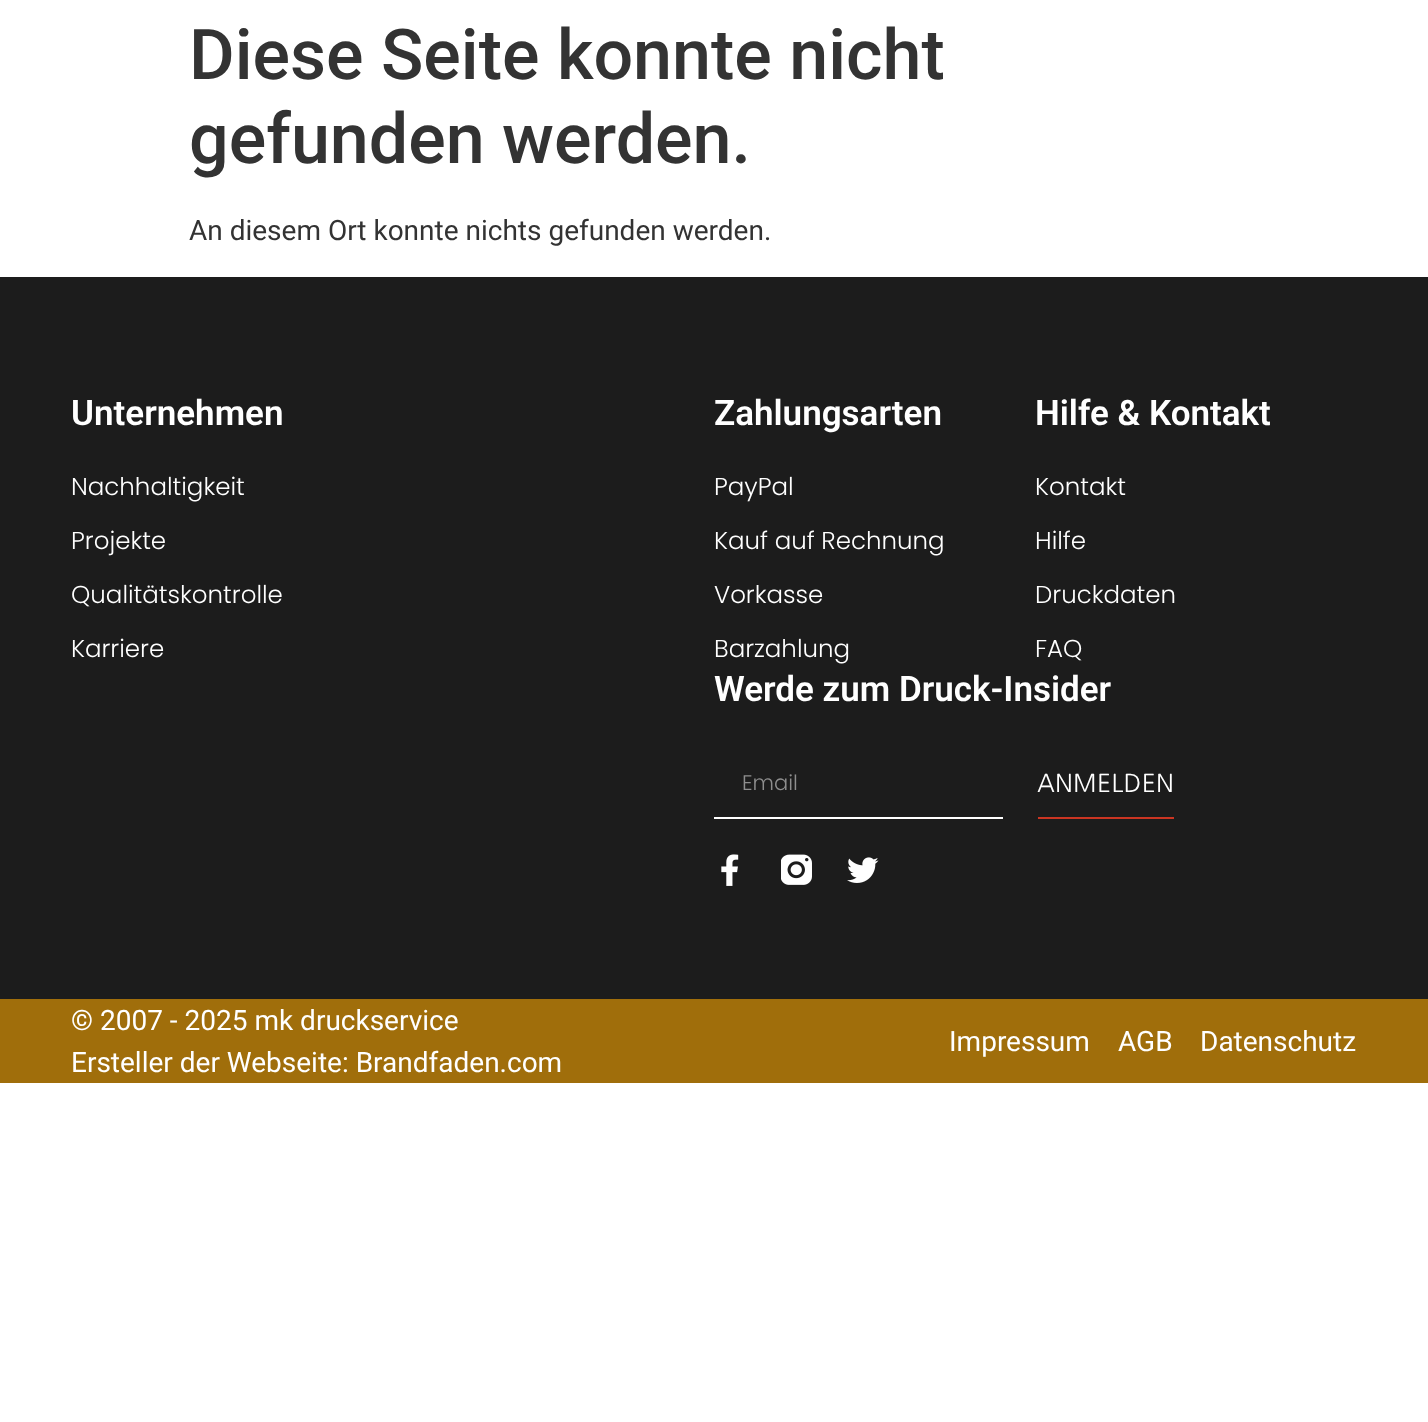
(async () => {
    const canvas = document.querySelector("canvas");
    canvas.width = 1428;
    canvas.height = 1422;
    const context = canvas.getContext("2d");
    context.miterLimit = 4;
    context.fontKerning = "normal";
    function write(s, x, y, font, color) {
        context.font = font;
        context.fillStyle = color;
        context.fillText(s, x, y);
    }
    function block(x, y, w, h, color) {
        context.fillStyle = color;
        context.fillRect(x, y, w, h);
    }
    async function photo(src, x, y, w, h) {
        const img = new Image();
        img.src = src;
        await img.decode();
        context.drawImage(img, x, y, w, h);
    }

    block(0, 0, 1428, 1422, "rgb(255, 255, 255)");
    write("Diese Seite konnte nicht", 189, 79, "500 70px Roboto", "rgb(51, 51, 51)");
    write("gefunden werden.", 189, 163, "500 70px Roboto", "rgb(51, 51, 51)");
    write("An diesem Ort konnte nichts gefunden werden.", 189, 240, "28px Roboto", "rgb(51, 51, 51)");
    block(0, 277, 1428, 722, "rgb(28, 28, 28)");
    write("Unternehmen", 71, 425, "600 35px Roboto", "rgb(255, 255, 255)");
    write("Nachhaltigkeit", 71, 495, "300 24.5px Poppins", "rgb(255, 255, 255)");
    write("Projekte", 71, 549, "300 24.5px Poppins", "rgb(255, 255, 255)");
    write("Qualitätskontrolle", 71, 603, "300 24.5px Poppins", "rgb(255, 255, 255)");
    write("Karriere", 71, 657, "300 24.5px Poppins", "rgb(255, 255, 255)");
    write("Zahlungsarten", 714, 425, "600 35px Roboto", "rgb(255, 255, 255)");
    write("PayPal", 714, 495, "300 24.5px Poppins", "rgb(255, 255, 255)");
    write("Kauf auf Rechnung", 714, 549, "300 24.5px Poppins", "rgb(255, 255, 255)");
    write("Vorkasse", 714, 603, "300 24.5px Poppins", "rgb(255, 255, 255)");
    write("Barzahlung", 714, 657, "300 24.5px Poppins", "rgb(255, 255, 255)");
    write("Hilfe & Kontakt", 1035, 425, "600 35px Roboto", "rgb(255, 255, 255)");
    write("Kontakt", 1035, 495, "300 24.5px Poppins", "rgb(255, 255, 255)");
    write("Hilfe", 1035, 549, "300 24.5px Poppins", "rgb(255, 255, 255)");
    write("Druckdaten", 1035, 603, "300 24.5px Poppins", "rgb(255, 255, 255)");
    write("FAQ", 1035, 657, "300 24.5px Poppins", "rgb(255, 255, 255)");
    write("Werde zum Druck-Insider", 714, 701, "600 35px Roboto", "rgb(255, 255, 255)");
    block(714, 817, 289, 2, "rgb(255, 255, 255)");
    write("Email", 742, 790, "300 21px Poppins", "rgb(142, 142, 142)");
    block(1038, 817, 136, 2, "rgb(203, 53, 34)");
    context.letterSpacing = "0.25px";
    write("ANMELDEN", 1037, 792, "24.5px NanumGothic", "rgb(255, 255, 255)");
    await photo("media/1.png", 721, 854, 18, 32);
    await photo("media/2.png", 781, 854, 31, 31);
    await photo("media/3.png", 847, 857, 32, 26);
    block(0, 999, 1428, 84, "rgb(160, 110, 11)");
    context.letterSpacing = "0px";
    write("© 2007 - 2025 mk druckservice", 71, 1030, "28px Roboto", "rgb(255, 255, 255)");
    write("Ersteller der Webseite: Brandfaden.com", 71, 1072, "28px Roboto", "rgb(255, 255, 255)");
    write("Impressum", 949, 1051, "28px Roboto", "rgb(255, 255, 255)");
    write("AGB", 1118, 1051, "28px Roboto", "rgb(255, 255, 255)");
    write("Datenschutz", 1200, 1051, "28px Roboto", "rgb(255, 255, 255)");
})();
